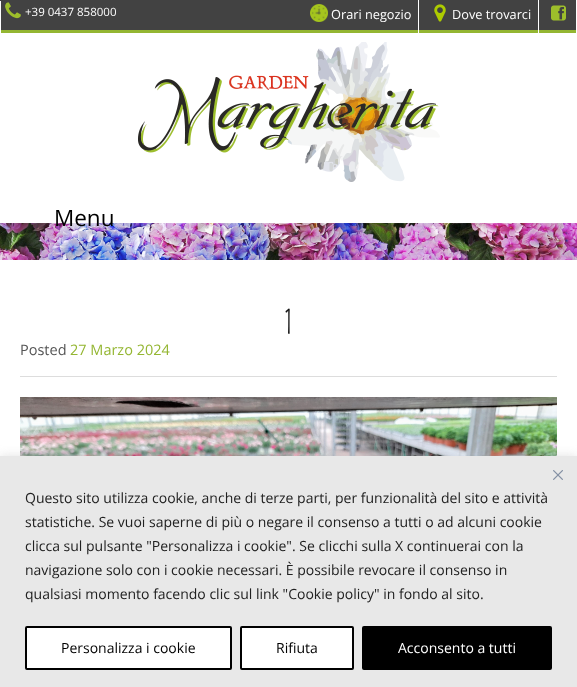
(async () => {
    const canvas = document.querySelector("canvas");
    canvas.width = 577;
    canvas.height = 687;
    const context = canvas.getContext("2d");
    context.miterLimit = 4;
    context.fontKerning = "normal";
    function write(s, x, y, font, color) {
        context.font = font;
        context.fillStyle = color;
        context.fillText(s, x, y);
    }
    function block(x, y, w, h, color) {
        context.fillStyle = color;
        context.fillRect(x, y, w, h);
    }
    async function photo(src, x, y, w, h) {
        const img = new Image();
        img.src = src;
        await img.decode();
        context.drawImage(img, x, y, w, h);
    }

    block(0, 0, 577, 687, "rgb(255, 255, 255)");
    block(0, 0, 576, 30, "rgb(66, 66, 66)");
    block(0, 30, 577, 3, "rgb(148, 182, 50)");
    block(0, 1, 1, 33, "rgb(255, 255, 255)");
    await photo("media/1.png", 5, 2, 16, 17);
    write("+39 0437 858000", 25, 16, "11.5px Open Sans", "rgb(255, 255, 255)");
    block(418, 0, 1, 33, "rgb(255, 255, 255)");
    await photo("media/2.png", 310, 4, 18, 18);
    write("Orari negozio", 331, 19, "12.75px Open Sans", "rgb(255, 255, 255)");
    block(538, 0, 1, 33, "rgb(255, 255, 255)");
    await photo("media/3.png", 434, 4, 12, 18);
    write("Dove trovarci", 452, 19, "12.75px Open Sans", "rgb(255, 255, 255)");
    block(576, 30, 1, 3, "rgb(255, 255, 255)");
    await photo("media/4.png", 551, 5, 15, 16);
    await photo("media/5.png", 138, 42, 302, 140);
    await photo("media/6.png", 0, 223, 577, 37);
    write("Menu", 54, 226, "22.5px Open Sans", "rgb(0, 0, 0)");
    block(20, 376, 537, 1, "rgb(221, 221, 221)");
    write("1", 284, 334, "32px Pompiere", "rgb(17, 17, 17)");
    write("Posted", 20, 355, "14.5px Open Sans", "rgb(85, 85, 85)");
    write("27 Marzo 2024", 70, 355, "14.5px Open Sans", "rgb(148, 182, 50)");
    await photo("media/7.png", 20, 397, 537, 59);
    context.fillStyle = "rgba(172, 171, 171, 0.3)";
    context.filter = "blur(5px)";
    context.beginPath();
    context.rect(0, 455, 577, 231);
    context.fill();
    context.filter = "none";
    block(0, 456, 577, 231, "rgb(232, 232, 232)");
    await photo("media/8.png", 553, 470, 10, 10);
    write("Questo sito utilizza cookie, anche di terze parti, per funzionalità del sito e attività", 25, 503, "14px Open Sans", "rgb(33, 33, 33)");
    write("statistiche. Se vuoi saperne di più o negare il consenso a tutti o ad alcuni cookie", 25, 527, "14px Open Sans", "rgb(33, 33, 33)");
    write("clicca sul pulsante \"Personalizza i cookie\". Se clicchi sulla X continuerai con la", 25, 551, "14px Open Sans", "rgb(33, 33, 33)");
    write("navigazione solo con i cookie necessari. È possibile revocare il consenso in", 25, 575, "14px Open Sans", "rgb(33, 33, 33)");
    write("qualsiasi momento facendo clic sul link \"Cookie policy\" in fondo al sito.", 25, 599, "14px Open Sans", "rgb(33, 33, 33)");
    context.fillStyle = "rgb(255, 255, 255)";
    context.beginPath();
    context.roundRect(26, 627, 205, 42, 1);
    context.fill();
    context.strokeStyle = "rgb(0, 0, 0)";
    context.lineWidth = 2;
    context.stroke();
    write("Personalizza i cookie", 61, 653, "14px Open Sans", "rgb(0, 0, 0)");
    context.fillStyle = "rgb(255, 255, 255)";
    context.beginPath();
    context.roundRect(241, 627, 112, 42, 1);
    context.fill();
    context.stroke();
    write("Rifiuta", 276, 653, "14px Open Sans", "rgb(0, 0, 0)");
    context.beginPath();
    context.roundRect(363, 627, 188, 42, 1);
    context.fill();
    context.stroke();
    write("Acconsento a tutti", 398, 653, "14px Open Sans", "rgb(255, 255, 255)");
})();
